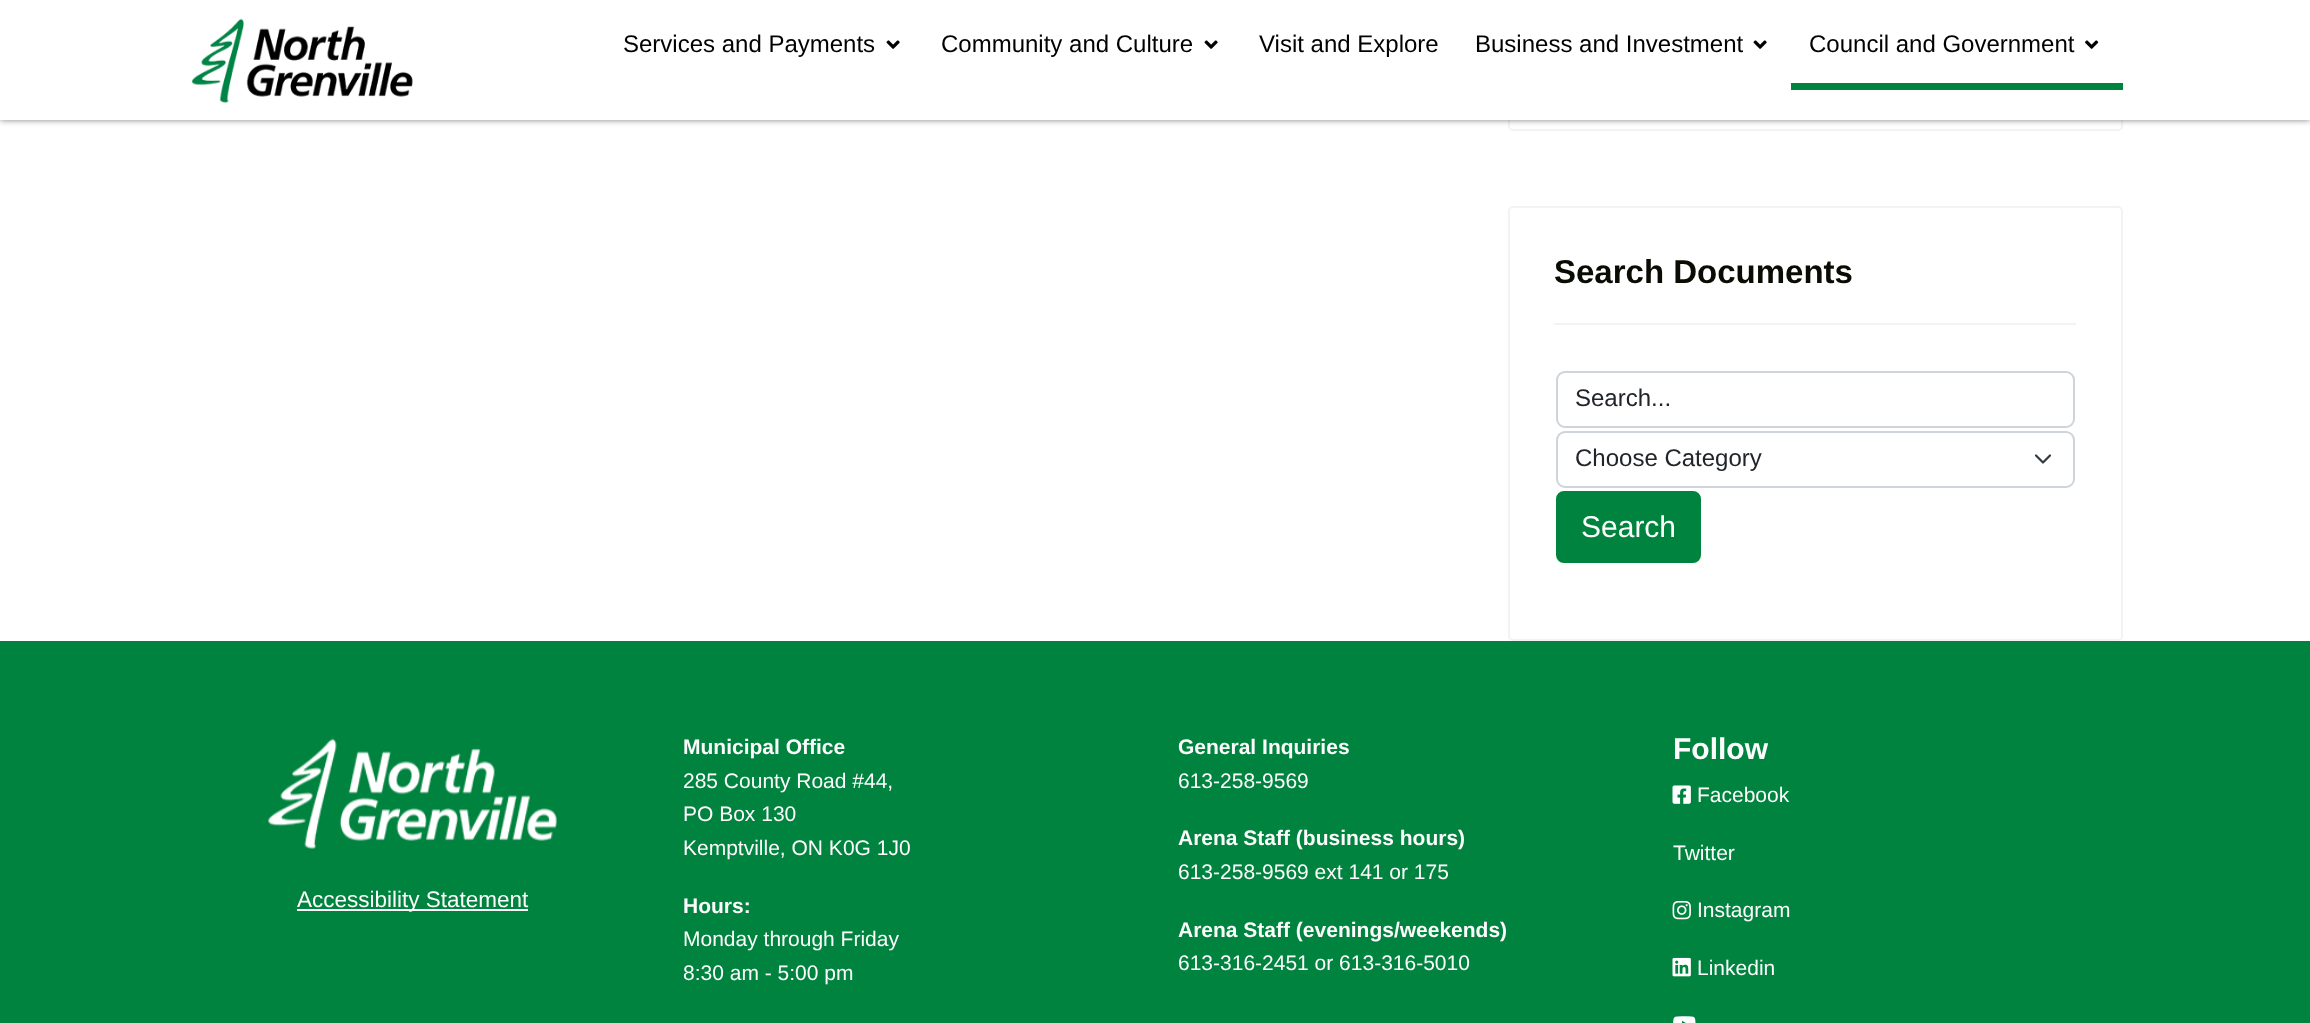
(async () => {
    const canvas = document.querySelector("canvas");
    canvas.width = 2310;
    canvas.height = 1023;
    const context = canvas.getContext("2d");
    context.miterLimit = 4;
    context.fontKerning = "normal";
    function write(s, x, y, font, color) {
        context.font = font;
        context.fillStyle = color;
        context.fillText(s, x, y);
    }
    function block(x, y, w, h, color) {
        context.fillStyle = color;
        context.fillRect(x, y, w, h);
    }
    async function photo(src, x, y, w, h) {
        const img = new Image();
        img.src = src;
        await img.decode();
        context.drawImage(img, x, y, w, h);
    }

    block(0, 0, 2310, 1023, "rgb(255, 255, 255)");
    context.beginPath();
    context.roundRect(1509, -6, 613, 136, 4);
    context.strokeStyle = "rgb(243, 243, 243)";
    context.lineWidth = 2;
    context.stroke();
    context.fillStyle = "rgba(0, 0, 0, 0.5)";
    context.filter = "blur(3px)";
    context.beginPath();
    context.rect(0, 0, 2310, 120);
    context.fill();
    context.filter = "none";
    block(0, 0, 2310, 120, "rgb(255, 255, 255)");
    await photo("media/1.png", 191, 18, 222, 85);
    write("Services and Payments", 623, 52, "24px Liberation Sans", "rgb(0, 0, 0)");
    await photo("media/2.png", 886, 40, 14, 9);
    write("Community and Culture", 941, 52, "24px Liberation Sans", "rgb(0, 0, 0)");
    await photo("media/2.png", 1204, 40, 14, 9);
    write("Visit and Explore", 1259, 52, "24px Liberation Sans", "rgb(0, 0, 0)");
    write("Business and Investment", 1475, 52, "24px Liberation Sans", "rgb(0, 0, 0)");
    await photo("media/2.png", 1753, 40, 14, 9);
    write("Council and Government", 1809, 52, "24px Liberation Sans", "rgb(0, 0, 0)");
    block(1791, 83, 332, 7, "rgb(0, 131, 62)");
    await photo("media/3.png", 2085, 40, 14, 9);
    context.beginPath();
    context.roundRect(1509, 207, 613, 433, 4);
    context.stroke();
    block(1554, 323, 522, 2, "rgb(243, 243, 243)");
    write("Search Documents", 1554, 283, "bold 33px Liberation Sans", "rgb(9, 12, 2)");
    context.beginPath();
    context.roundRect(1557, 372, 517, 55, 8);
    context.strokeStyle = "rgb(206, 212, 218)";
    context.stroke();
    write("Search...", 1575, 406, "24px Liberation Sans", "rgb(33, 37, 41)");
    context.beginPath();
    context.moveTo(2036, 455.5);
    context.lineTo(2043, 462.5);
    context.lineTo(2050, 455.5);
    context.strokeStyle = "rgb(52, 58, 64)";
    context.lineWidth = 2.2;
    context.lineCap = "round";
    context.lineJoin = "round";
    context.stroke();
    context.beginPath();
    context.roundRect(1557, 432, 517, 55, 8);
    context.strokeStyle = "rgb(206, 212, 218)";
    context.lineWidth = 2;
    context.lineJoin = "miter";
    context.stroke();
    write("Choose Category", 1575, 466, "24px Liberation Sans", "rgb(33, 37, 41)");
    context.fillStyle = "rgb(0, 131, 62)";
    context.beginPath();
    context.roundRect(1557, 492, 143, 70, 7);
    context.fill();
    context.strokeStyle = "rgb(0, 131, 62)";
    context.stroke();
    write("Search", 1581, 537, "30px Liberation Sans", "rgb(252, 252, 252)");
    block(0, 641, 2310, 382, "rgb(0, 131, 62)");
    await photo("media/4.png", 268, 738, 289, 111);
    block(297, 909, 231, 2, "rgb(252, 252, 252)");
    write("Accessibility Statement", 297, 907, "22.5px Liberation Sans", "rgb(252, 252, 252)");
    write("Municipal Office", 683, 754, "bold 21px Liberation Sans", "rgb(252, 252, 252)");
    write("285 County Road #44,", 683, 788, "21px Liberation Sans", "rgb(252, 252, 252)");
    write("PO Box 130", 683, 821, "21px Liberation Sans", "rgb(252, 252, 252)");
    write("Kemptville, ON K0G 1J0", 683, 855, "21px Liberation Sans", "rgb(252, 252, 252)");
    write("Hours:", 683, 913, "bold 21px Liberation Sans", "rgb(252, 252, 252)");
    write("Monday through Friday", 683, 946, "21px Liberation Sans", "rgb(252, 252, 252)");
    write("8:30 am - 5:00 pm", 683, 980, "21px Liberation Sans", "rgb(252, 252, 252)");
    write("General Inquiries", 1178, 754, "bold 21px Liberation Sans", "rgb(252, 252, 252)");
    write("613-258-9569", 1178, 788, "21px Liberation Sans", "rgb(252, 252, 252)");
    write("Arena Staff (business hours)", 1178, 845, "bold 21px Liberation Sans", "rgb(252, 252, 252)");
    write("613-258-9569 ext 141 or 175", 1178, 879, "21px Liberation Sans", "rgb(252, 252, 252)");
    write("Arena Staff (evenings/weekends)", 1178, 937, "bold 21px Liberation Sans", "rgb(252, 252, 252)");
    write("613-316-2451 or 613-316-5010", 1178, 970, "21px Liberation Sans", "rgb(252, 252, 252)");
    write("Follow", 1673, 759, "bold 30px Liberation Sans", "rgb(252, 252, 252)");
    await photo("media/5.png", 1672, 785, 19, 19);
    write("Facebook", 1697, 802, "21px Liberation Sans", "rgb(252, 252, 252)");
    write("Twitter", 1673, 860, "21px Liberation Sans", "rgb(252, 252, 252)");
    await photo("media/6.png", 1672, 900, 19, 20);
    write("Instagram", 1697, 917, "21px Liberation Sans", "rgb(252, 252, 252)");
    await photo("media/7.png", 1672, 957, 19, 20);
    write("Linkedin", 1697, 975, "21px Liberation Sans", "rgb(252, 252, 252)");
    await photo("media/8.png", 1673, 1016, 23, 7);
})();
